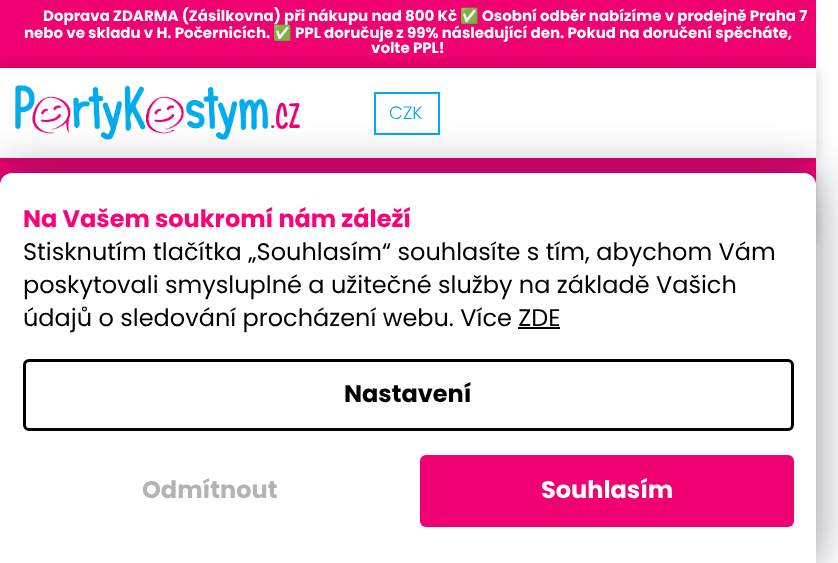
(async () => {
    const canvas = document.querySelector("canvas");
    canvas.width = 838;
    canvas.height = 563;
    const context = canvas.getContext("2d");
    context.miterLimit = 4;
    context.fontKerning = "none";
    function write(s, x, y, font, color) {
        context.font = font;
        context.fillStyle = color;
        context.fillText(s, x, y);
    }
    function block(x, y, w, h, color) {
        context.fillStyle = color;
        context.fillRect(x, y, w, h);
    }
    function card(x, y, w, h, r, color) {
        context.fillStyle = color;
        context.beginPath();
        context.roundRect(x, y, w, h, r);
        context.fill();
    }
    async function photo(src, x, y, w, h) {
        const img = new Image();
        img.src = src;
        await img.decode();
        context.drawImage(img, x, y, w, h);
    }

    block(0, 0, 838, 563, "rgb(255, 255, 255)");
    block(0, 0, 816, 68, "rgb(240, 0, 112)");
    write("Doprava ZDARMA (Zásilkovna) při nákupu nad 800 Kč", 43, 21, "bold 15px Poppins", "rgb(255, 255, 255)");
    write("✅", 460, 21, "bold 15px Noto Color Emoji", "rgb(255, 255, 255)");
    write("Osobní odběr nabízíme v prodejně Praha 7", 482, 21, "bold 15px Poppins", "rgb(255, 255, 255)");
    write("nebo ve skladu v H. Počernicích.", 24, 38, "bold 15px Poppins", "rgb(255, 255, 255)");
    write("✅", 273, 38, "bold 15px Noto Color Emoji", "rgb(255, 255, 255)");
    write("PPL doručuje z 99% následující den. Pokud na doručení spěcháte,", 295, 38, "bold 15px Poppins", "rgb(255, 255, 255)");
    write("volte PPL!", 371, 53, "bold 15px Poppins", "rgb(255, 255, 255)");
    context.fillStyle = "rgba(0, 0, 0, 0.15)";
    context.filter = "blur(4.5px)";
    context.beginPath();
    context.rect(0, 170, 816, 72);
    context.fill();
    context.filter = "none";
    block(0, 158, 816, 27, "rgb(241, 0, 113)");
    context.fillStyle = "rgba(0, 0, 0, 0.2)";
    context.filter = "blur(7.5px)";
    context.beginPath();
    context.rect(0, 68, 816, 90);
    context.fill();
    context.filter = "none";
    block(0, 68, 816, 90, "rgb(255, 255, 255)");
    await photo("media/1.png", 15, 85, 285, 55);
    block(816, 68, 1, 90, "rgba(255, 255, 255, 0.3)");
    context.strokeStyle = "rgb(0, 172, 238)";
    context.lineWidth = 2;
    context.strokeRect(375, 93, 64, 41);
    write("CZK", 389, 119, "300 18px Poppins", "rgb(0, 172, 238)");
    context.fillStyle = "rgba(27, 25, 57, 0.5)";
    context.filter = "blur(22.5px)";
    context.beginPath();
    context.roundRect(0, 173, 816, 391, 12);
    context.fill();
    context.filter = "none";
    context.fillStyle = "rgb(255, 255, 255)";
    context.beginPath();
    context.moveTo(12, 173);
    context.lineTo(804, 173);
    context.bezierCurveTo(810.5, 173, 816, 178.5, 816, 185);
    context.lineTo(816, 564);
    context.lineTo(0, 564);
    context.lineTo(0, 185);
    context.bezierCurveTo(0, 178.5, 5.5, 173, 12, 173);
    context.closePath();
    context.fill();
    write("Na Vašem soukromí nám záleží", 23, 227, "bold 24px Poppins", "rgb(255, 0, 119)");
    write("Stisknutím tlačítka „Souhlasím“ souhlasíte s tím, abychom Vám", 23, 260, "24px Poppins", "rgb(0, 0, 0)");
    write("poskytovali smysluplné a užitečné služby na základě Vašich", 23, 293, "24px Poppins", "rgb(0, 0, 0)");
    write("údajů o sledování procházení webu. Více ZDE", 23, 326, "24px Poppins", "rgb(0, 0, 0)");
    block(518, 327, 42, 2, "rgb(0, 0, 0)");
    context.beginPath();
    context.roundRect(24.5, 360.5, 768, 69, 4.5);
    context.strokeStyle = "rgb(0, 0, 0)";
    context.lineWidth = 3;
    context.stroke();
    write("Nastavení", 344, 402, "bold 24px Poppins", "rgb(0, 0, 0)");
    write("Odmítnout", 142, 498, "bold 24px Poppins", "rgb(179, 179, 179)");
    card(420, 455, 374, 72, 6, "rgb(240, 0, 112)");
    write("Souhlasím", 541, 498, "bold 24px Poppins", "rgb(255, 255, 255)");
})();
